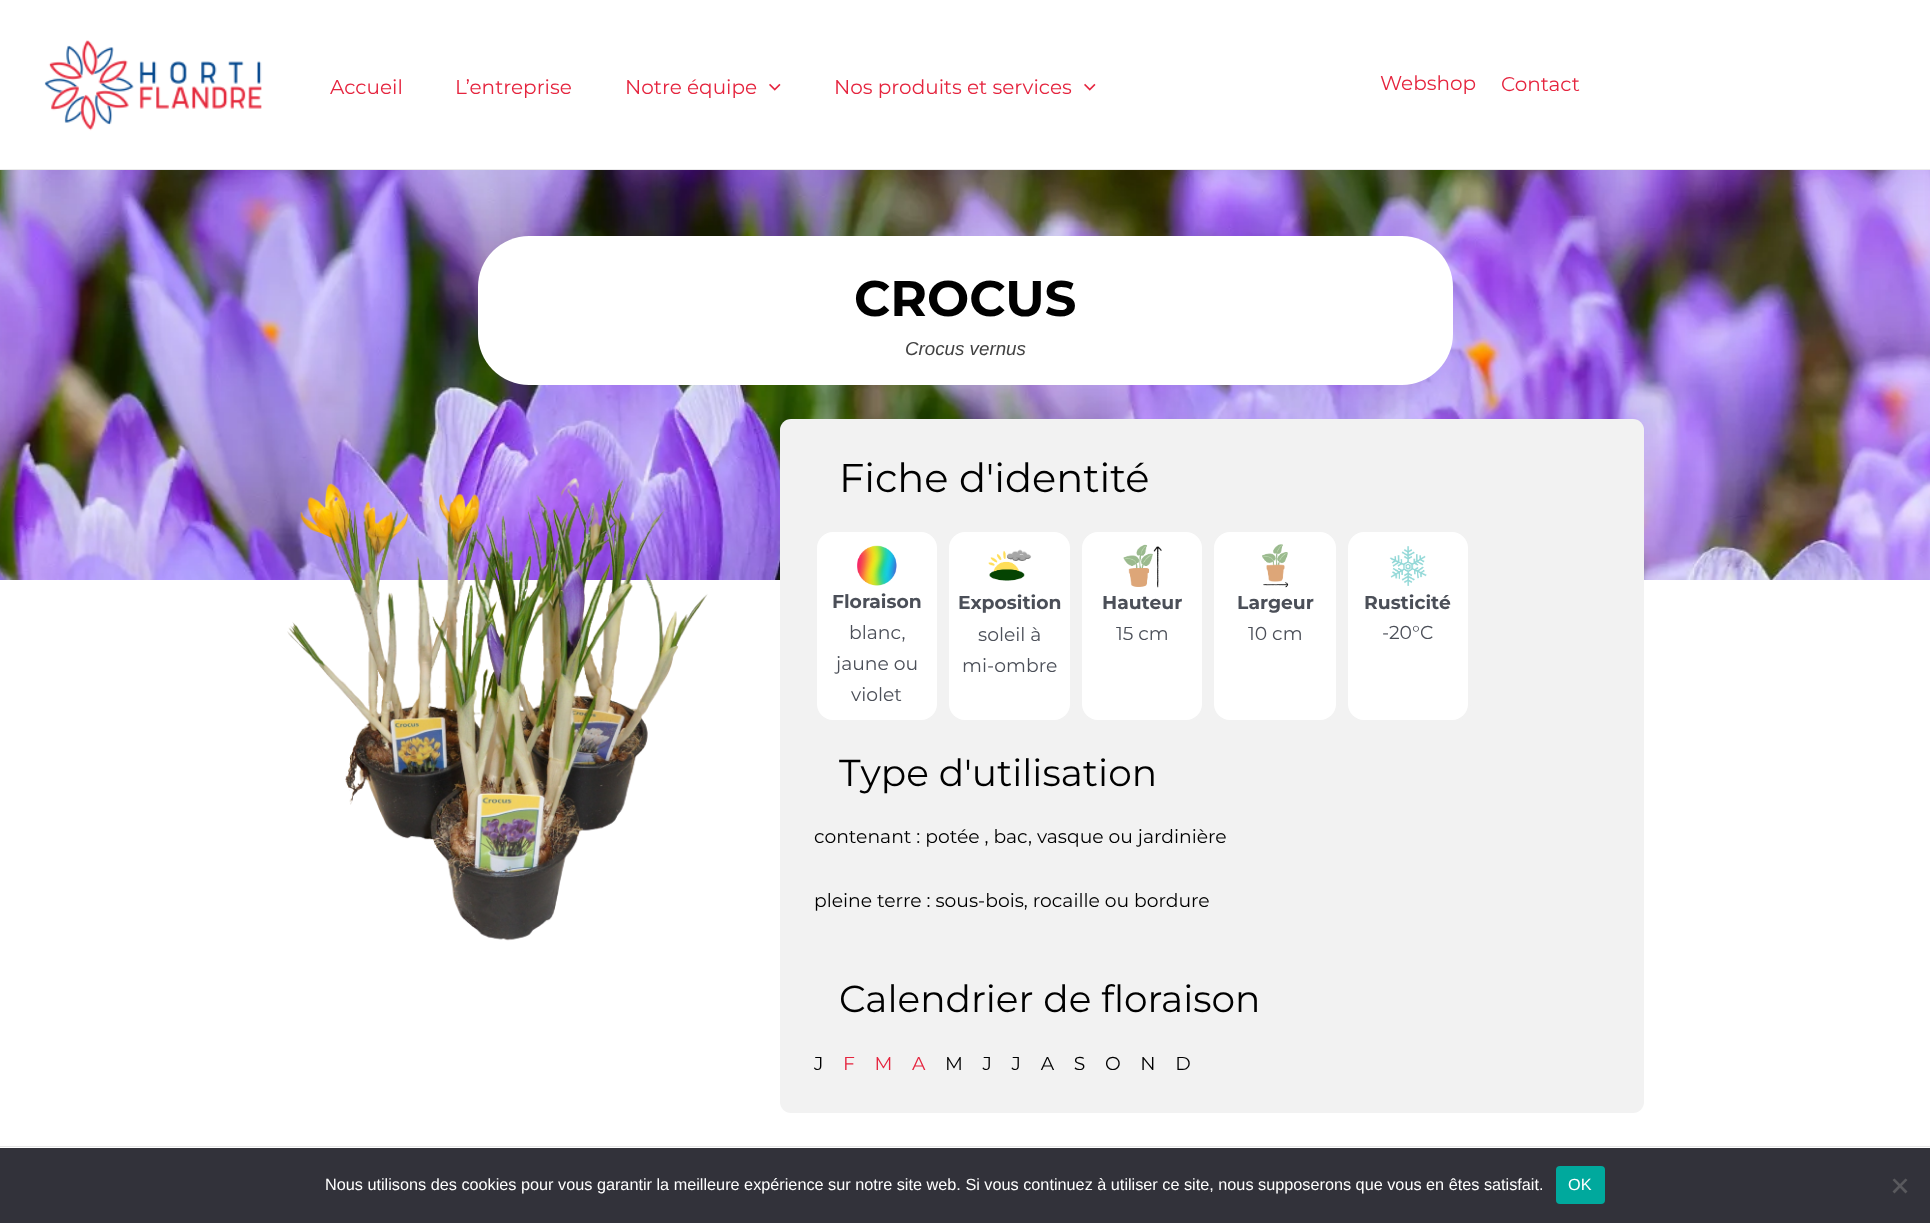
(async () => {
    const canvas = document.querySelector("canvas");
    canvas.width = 1930;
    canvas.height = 1223;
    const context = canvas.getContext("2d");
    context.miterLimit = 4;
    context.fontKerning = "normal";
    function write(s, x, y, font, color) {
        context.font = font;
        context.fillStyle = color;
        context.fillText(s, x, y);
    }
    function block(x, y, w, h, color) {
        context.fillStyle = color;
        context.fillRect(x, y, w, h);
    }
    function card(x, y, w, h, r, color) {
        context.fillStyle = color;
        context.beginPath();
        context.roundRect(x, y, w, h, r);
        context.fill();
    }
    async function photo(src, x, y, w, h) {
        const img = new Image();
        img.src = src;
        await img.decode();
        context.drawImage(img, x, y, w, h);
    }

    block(0, 0, 1930, 1223, "rgb(255, 255, 255)");
    block(0, 169, 1930, 1, "rgb(234, 234, 234)");
    await photo("media/1.png", 44, 40, 218, 91);
    write("Accueil", 330, 94, "20px Montserrat", "rgb(229, 36, 62)");
    write("L’entreprise", 455, 94, "20px Montserrat", "rgb(229, 36, 62)");
    write("Notre équipe", 625, 94, "20px Montserrat", "rgb(229, 36, 62)");
    await photo("media/2.png", 769, 83, 12, 8);
    write("Nos produits et services", 834, 94, "20px Montserrat", "rgb(229, 36, 62)");
    await photo("media/2.png", 1084, 83, 12, 8);
    write("Webshop", 1380, 90, "20px Montserrat", "rgb(229, 36, 62)");
    write("Contact", 1501, 91, "20px Montserrat", "rgb(229, 36, 62)");
    await photo("media/3.png", 0, 170, 1930, 410);
    card(478, 236, 975, 149, 51, "rgb(255, 255, 255)");
    write("CROCUS", 854, 316, "bold 50px Montserrat", "rgb(0, 0, 0)");
    write("Crocus vernus", 905, 355, "italic 18.75px Liberation Sans", "rgb(66, 66, 66)");
    await photo("media/4.png", 287, 478, 421, 463);
    card(780, 419, 864, 694, 11, "rgb(242, 242, 242)");
    write("Fiche d'identité", 839, 492, "40px Montserrat", "rgb(0, 0, 0)");
    context.fillStyle = "rgb(255, 255, 255)";
    context.beginPath();
    context.roundRect(815.5, 530.5, 123, 191, 17.5);
    context.fill();
    context.strokeStyle = "rgb(242, 242, 242)";
    context.lineWidth = 3;
    context.stroke();
    await photo("media/5.png", 857, 545, 40, 41);
    write("Floraison", 832, 608, "bold 18.75px Montserrat", "rgb(75, 79, 88)");
    write("blanc,", 849, 639, "18.75px Montserrat", "rgb(75, 79, 88)");
    write("jaune ou", 836, 670, "18.75px Montserrat", "rgb(75, 79, 88)");
    write("violet", 851, 701, "18.75px Montserrat", "rgb(75, 79, 88)");
    context.fillStyle = "rgb(255, 255, 255)";
    context.beginPath();
    context.roundRect(947.5, 530.5, 124, 191, 17.5);
    context.fill();
    context.stroke();
    await photo("media/6.png", 988, 549, 44, 32);
    write("Exposition", 958, 609, "bold 18.75px Montserrat", "rgb(75, 79, 88)");
    write("soleil à", 978, 641, "18.75px Montserrat", "rgb(75, 79, 88)");
    write("mi-ombre", 962, 672, "18.75px Montserrat", "rgb(75, 79, 88)");
    context.fillStyle = "rgb(255, 255, 255)";
    context.beginPath();
    context.roundRect(1080.5, 530.5, 123, 191, 17.5);
    context.fill();
    context.stroke();
    await photo("media/7.png", 1123, 544, 39, 44);
    write("Hauteur", 1102, 609, "bold 18.75px Montserrat", "rgb(75, 79, 88)");
    write("15 cm", 1116, 640, "18.75px Montserrat", "rgb(75, 79, 88)");
    context.fillStyle = "rgb(255, 255, 255)";
    context.beginPath();
    context.roundRect(1212.5, 530.5, 125, 191, 17.5);
    context.fill();
    context.stroke();
    await photo("media/8.png", 1262, 544, 27, 44);
    write("Largeur", 1237, 609, "bold 18.75px Montserrat", "rgb(75, 79, 88)");
    write("10 cm", 1248, 640, "18.75px Montserrat", "rgb(75, 79, 88)");
    context.fillStyle = "rgb(255, 255, 255)";
    context.beginPath();
    context.roundRect(1346.5, 530.5, 123, 191, 17.5);
    context.fill();
    context.stroke();
    await photo("media/9.png", 1389, 546, 38, 40);
    write("Rusticité", 1364, 609, "bold 18.75px Montserrat", "rgb(75, 79, 88)");
    write("-20°C", 1382, 639, "18.75px Montserrat", "rgb(75, 79, 88)");
    write("Type d'utilisation", 839, 786, "37.5px Montserrat", "rgb(0, 0, 0)");
    write("contenant : potée , bac, vasque ou jardinière", 814, 843, "18.75px Montserrat", "rgb(0, 0, 0)");
    write("pleine terre : sous-bois, rocaille ou bordure", 814, 907, "18.75px Montserrat", "rgb(0, 0, 0)");
    write("Calendrier de floraison", 839, 1012, "37.5px Montserrat", "rgb(0, 0, 0)");
    write("J", 814, 1070, "18.75px Montserrat", "rgb(0, 0, 0)");
    write("F    M    A", 843, 1070, "18.75px Montserrat", "rgb(229, 36, 62)");
    write("M    J    J    A    S    O    N    D", 945, 1070, "18.75px Montserrat", "rgb(0, 0, 0)");
    block(0, 1146, 1930, 1, "rgb(230, 230, 230)");
    block(0, 1148, 1930, 75, "rgb(50, 50, 58)");
    write("Nous utilisons des cookies pour vous garantir la meilleure expérience sur notre site web. Si vous continuez à utiliser ce site, nous supposerons que vous en êtes satisfait.", 325, 1190, "16.25px Liberation Sans", "rgb(255, 255, 255)");
    card(1556, 1166, 49, 38, 4, "rgb(0, 169, 157)");
    write("OK", 1568, 1190, "16.25px Liberation Sans", "rgb(255, 255, 255)");
    context.fillStyle = "rgb(89, 89, 93)";
    context.beginPath();
    context.moveTo(1905.5, 1178.5);
    context.lineTo(1907.5, 1180);
    context.lineTo(1894.5, 1193.5);
    context.lineTo(1892.5, 1191.5);
    context.closePath();
    context.fill();
    context.beginPath();
    context.moveTo(1892.5, 1180);
    context.lineTo(1894.5, 1178.5);
    context.lineTo(1907.5, 1191.5);
    context.lineTo(1905.5, 1193.5);
    context.closePath();
    context.fill();
})();
